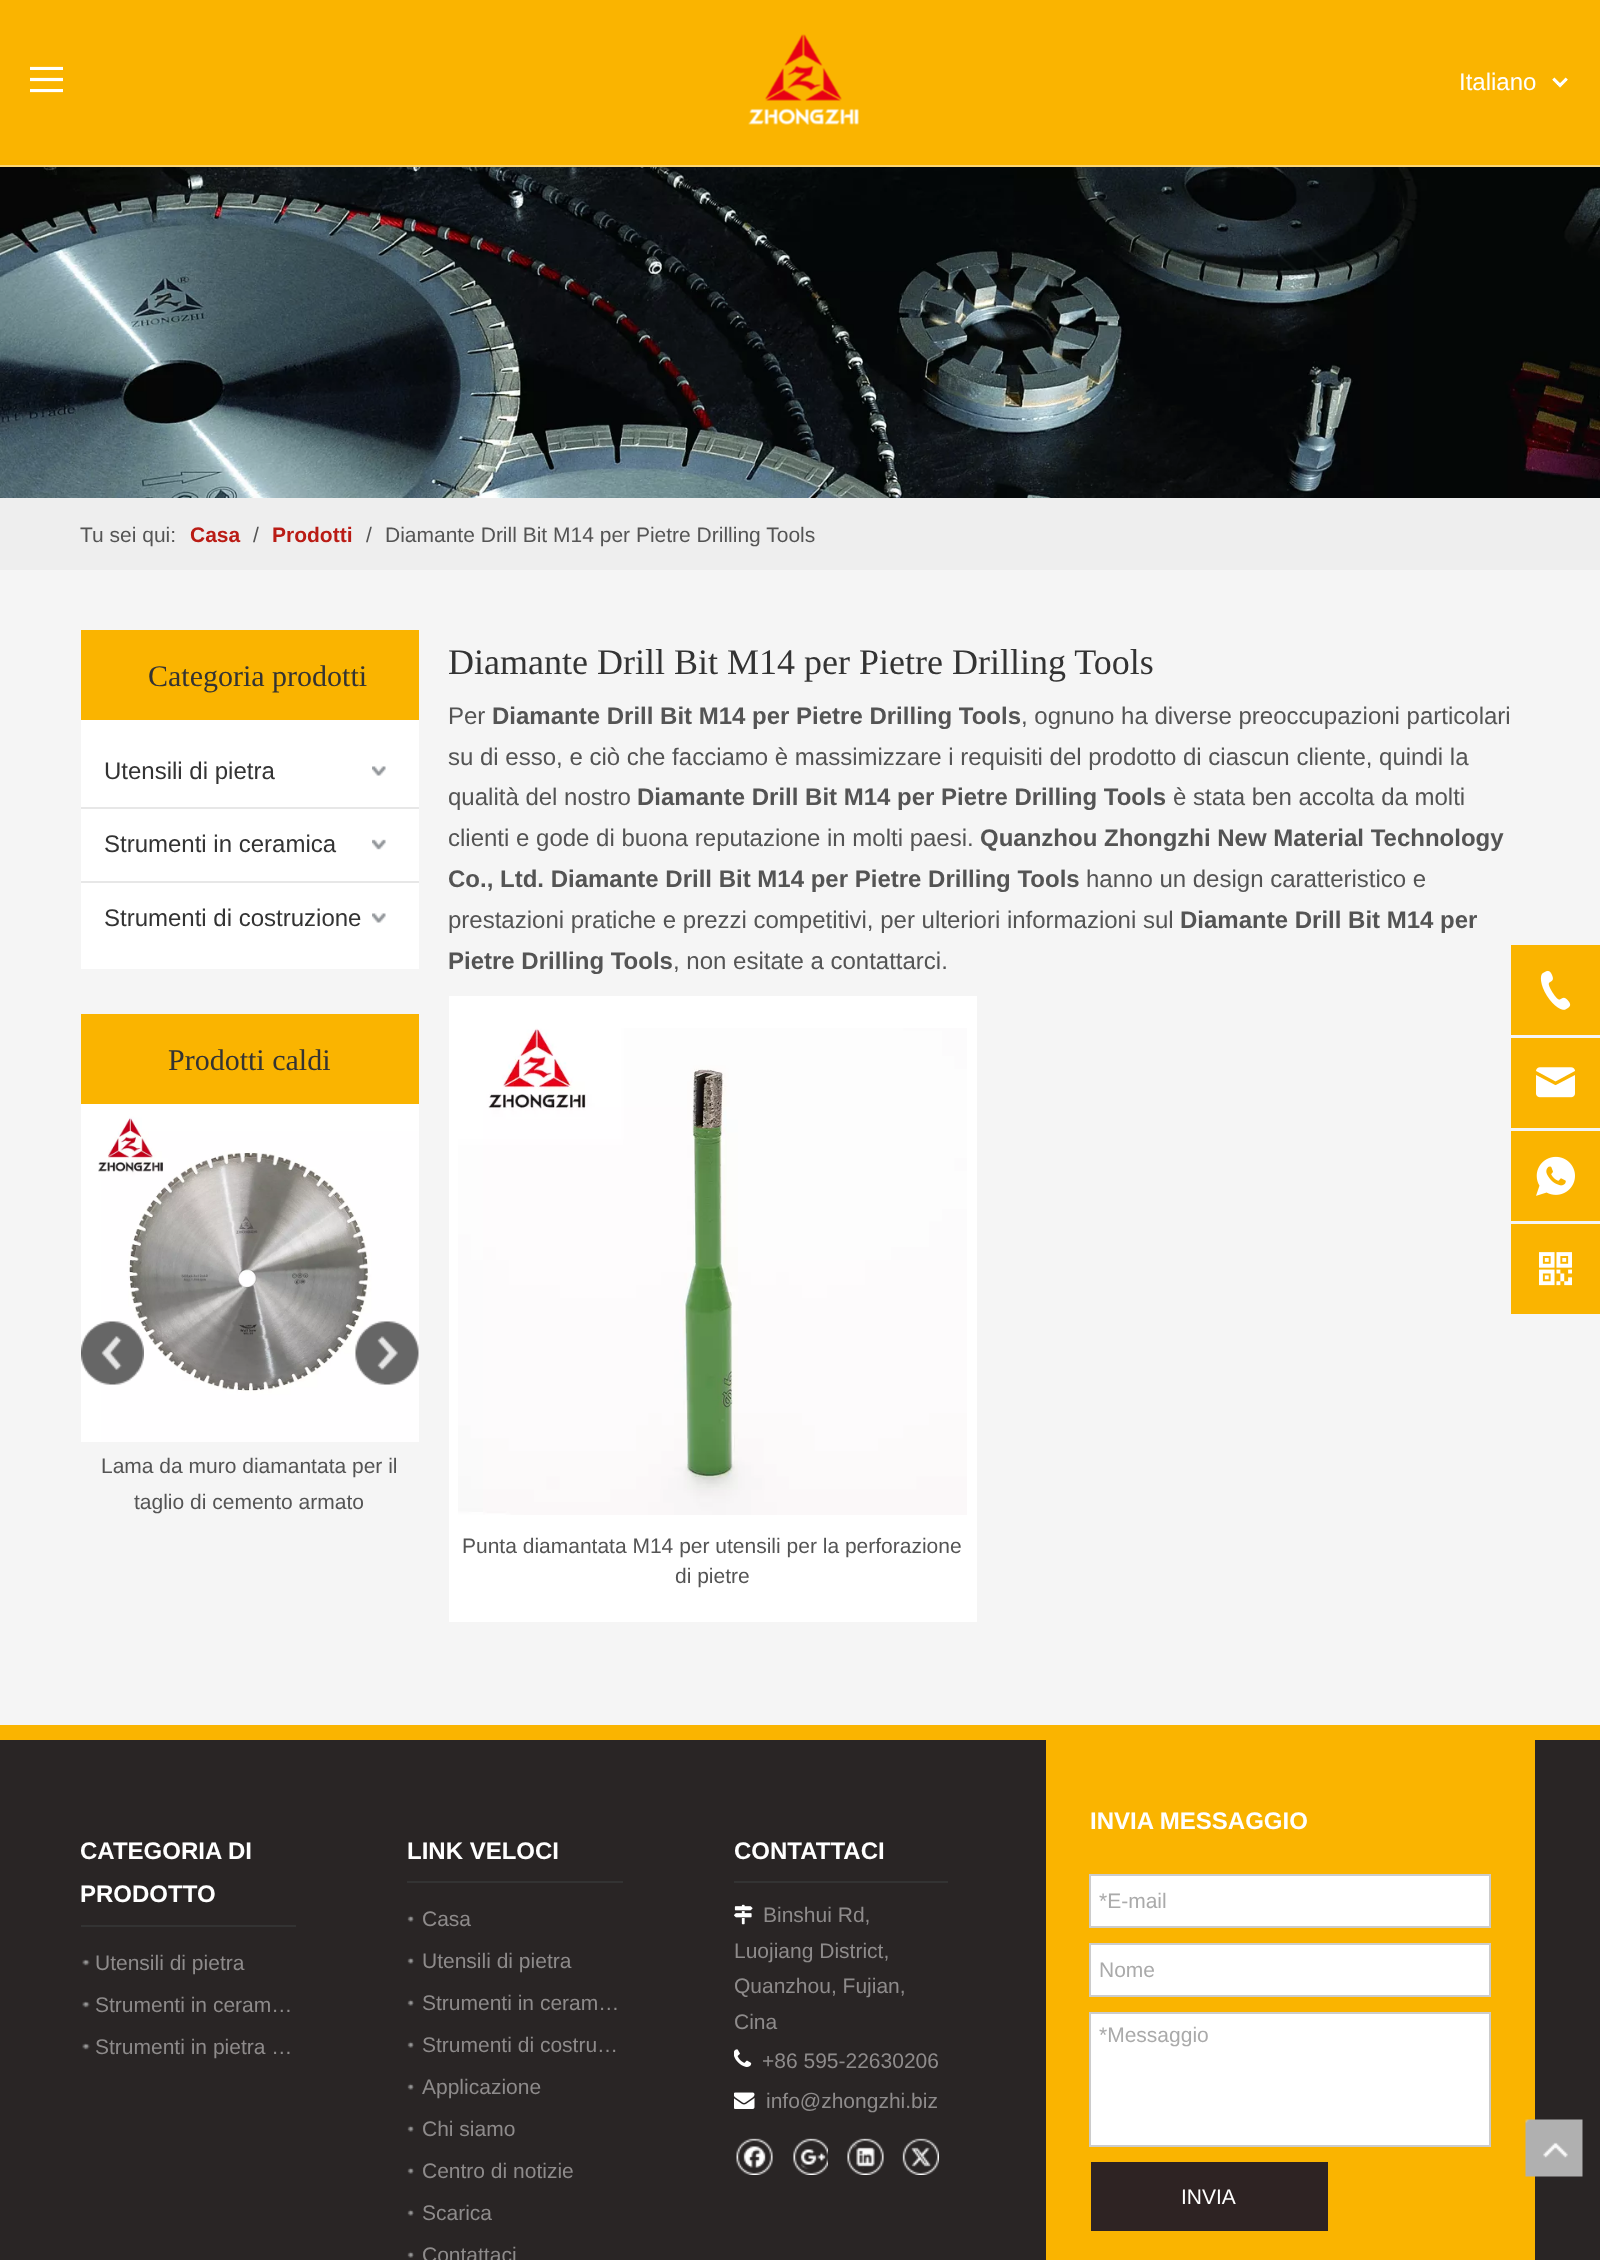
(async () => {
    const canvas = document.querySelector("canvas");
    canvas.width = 1600;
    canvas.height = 2260;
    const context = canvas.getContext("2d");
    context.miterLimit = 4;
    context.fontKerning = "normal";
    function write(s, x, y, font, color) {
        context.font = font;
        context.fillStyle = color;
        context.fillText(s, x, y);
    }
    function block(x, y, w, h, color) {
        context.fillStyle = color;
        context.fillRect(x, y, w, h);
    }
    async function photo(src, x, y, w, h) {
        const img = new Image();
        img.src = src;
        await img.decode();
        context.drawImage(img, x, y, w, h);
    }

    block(0, 0, 1600, 2260, "rgb(245, 245, 245)");
    block(0, 0, 1600, 165, "rgb(250, 180, 0)");
    block(0, 165, 1600, 2, "rgb(252, 214, 115)");
    await photo("media/1.png", 748, 34, 111, 91);
    await photo("media/2.png", 30, 66, 33, 27);
    write("Italiano", 1459, 90, "24px Liberation Sans", "rgb(255, 255, 255)");
    await photo("media/3.png", 1552, 77, 16, 11);
    await photo("media/4.png", 0, 167, 1600, 331);
    block(0, 498, 1600, 72, "rgb(238, 238, 238)");
    write("Tu sei qui:", 80, 542, "21px Liberation Sans", "rgb(84, 84, 84)");
    write("Casa", 190, 542, "bold 21px Liberation Sans", "rgb(186, 28, 21)");
    write("/", 253, 542, "21px Liberation Sans", "rgb(84, 84, 84)");
    write("Prodotti", 272, 542, "bold 21px Liberation Sans", "rgb(186, 28, 21)");
    write("/", 366, 542, "21px Liberation Sans", "rgb(84, 84, 84)");
    write("Diamante Drill Bit M14 per Pietre Drilling Tools", 385, 542, "21px Liberation Sans", "rgb(84, 84, 84)");
    block(81, 720, 338, 249, "rgb(255, 255, 255)");
    block(81, 630, 338, 90, "rgb(250, 180, 0)");
    write("Categoria prodotti", 148, 686, "30px Liberation Serif", "rgb(51, 51, 51)");
    write("Utensili di pietra", 104, 779, "24px Liberation Sans", "rgb(51, 51, 51)");
    await photo("media/5.png", 372, 766, 14, 10);
    block(81, 807, 338, 2, "rgb(231, 231, 231)");
    write("Strumenti in ceramica", 104, 852, "24px Liberation Sans", "rgb(51, 51, 51)");
    await photo("media/6.png", 372, 839, 14, 11);
    block(81, 881, 338, 2, "rgb(231, 231, 231)");
    write("Strumenti di costruzione", 104, 926, "24px Liberation Sans", "rgb(51, 51, 51)");
    await photo("media/5.png", 372, 913, 14, 10);
    block(81, 1014, 338, 90, "rgb(250, 180, 0)");
    write("Prodotti caldi", 168, 1070, "30px Liberation Serif", "rgb(51, 51, 51)");
    await photo("media/9.png", 81, 1104, 338, 338);
    await photo("media/7.png", 81, 1321, 63, 64);
    await photo("media/8.png", 355, 1321, 64, 64);
    write("Lama da muro diamantata per il", 101, 1473, "21px Liberation Sans", "rgb(84, 84, 84)");
    write("taglio di cemento armato", 134, 1509, "21px Liberation Sans", "rgb(84, 84, 84)");
    write("Diamante Drill Bit M14 per Pietre Drilling Tools", 448, 674, "36px Liberation Serif", "rgb(51, 51, 51)");
    write("Per", 448, 724, "24px Liberation Sans", "rgb(84, 84, 84)");
    write("Diamante Drill Bit M14 per Pietre Drilling Tools", 492, 724, "bold 24px Liberation Sans", "rgb(84, 84, 84)");
    write(", ognuno ha diverse preoccupazioni particolari", 1021, 724, "24px Liberation Sans", "rgb(84, 84, 84)");
    write("su di esso, e ciò che facciamo è massimizzare i requisiti del prodotto di ciascun cliente, quindi la", 448, 765, "24px Liberation Sans", "rgb(84, 84, 84)");
    write("qualità del nostro", 448, 805, "24px Liberation Sans", "rgb(84, 84, 84)");
    write("Diamante Drill Bit M14 per Pietre Drilling Tools", 637, 805, "bold 24px Liberation Sans", "rgb(84, 84, 84)");
    write("è stata ben accolta da molti", 1173, 805, "24px Liberation Sans", "rgb(84, 84, 84)");
    write("clienti e gode di buona reputazione in molti paesi.", 448, 846, "24px Liberation Sans", "rgb(84, 84, 84)");
    write("Quanzhou Zhongzhi New Material Technology", 980, 846, "bold 24px Liberation Sans", "rgb(84, 84, 84)");
    write("Co., Ltd. Diamante Drill Bit M14 per Pietre Drilling Tools", 448, 887, "bold 24px Liberation Sans", "rgb(84, 84, 84)");
    write("hanno un design caratteristico e", 1086, 887, "24px Liberation Sans", "rgb(84, 84, 84)");
    write("prestazioni pratiche e prezzi competitivi, per ulteriori informazioni sul", 448, 928, "24px Liberation Sans", "rgb(84, 84, 84)");
    write("Diamante Drill Bit M14 per", 1180, 928, "bold 24px Liberation Sans", "rgb(84, 84, 84)");
    write("Pietre Drilling Tools", 448, 969, "bold 24px Liberation Sans", "rgb(84, 84, 84)");
    write(", non esitate a contattarci.", 673, 969, "24px Liberation Sans", "rgb(84, 84, 84)");
    block(449, 996, 528, 626, "rgb(255, 255, 255)");
    await photo("media/10.png", 458, 1028, 509, 487);
    write("Punta diamantata M14 per utensili per la perforazione", 462, 1553, "21px Liberation Sans", "rgb(84, 84, 84)");
    write("di pietre", 675, 1583, "21px Liberation Sans", "rgb(84, 84, 84)");
    block(1511, 945, 89, 90, "rgb(250, 180, 0)");
    await photo("media/11.png", 1540, 970, 31, 40);
    block(1511, 1038, 89, 90, "rgb(250, 180, 0)");
    await photo("media/12.png", 1536, 1067, 39, 31);
    block(1511, 1131, 89, 90, "rgb(250, 180, 0)");
    await photo("media/13.png", 1536, 1156, 39, 40);
    block(1511, 1224, 89, 90, "rgb(250, 180, 0)");
    await photo("media/14.png", 1539, 1252, 33, 34);
    block(0, 1725, 1600, 15, "rgb(250, 180, 0)");
    block(0, 1740, 1600, 520, "rgb(41, 37, 37)");
    block(81, 1925, 215, 2, "rgb(51, 51, 51)");
    write("CATEGORIA DI", 80, 1859, "bold 24px Liberation Sans", "rgb(255, 255, 255)");
    write("PRODOTTO", 80, 1902, "bold 24px Liberation Sans", "rgb(255, 255, 255)");
    await photo("media/15.png", 82, 1959, 8, 7);
    write("Utensili di pietra", 95, 1970, "21px Liberation Sans", "rgb(142, 139, 139)");
    await photo("media/15.png", 82, 2001, 8, 7);
    write("Strumenti in ceram…", 95, 2012, "21px Liberation Sans", "rgb(142, 139, 139)");
    await photo("media/15.png", 82, 2043, 8, 7);
    write("Strumenti in pietra …", 95, 2054, "21px Liberation Sans", "rgb(142, 139, 139)");
    block(407, 1881, 216, 2, "rgb(51, 51, 51)");
    write("LINK VELOCI", 407, 1859, "bold 24px Liberation Sans", "rgb(255, 255, 255)");
    await photo("media/16.png", 407, 1915, 7, 7);
    write("Casa", 422, 1926, "21px Liberation Sans", "rgb(142, 139, 139)");
    await photo("media/16.png", 407, 1957, 7, 7);
    write("Utensili di pietra", 422, 1968, "21px Liberation Sans", "rgb(142, 139, 139)");
    await photo("media/16.png", 407, 1999, 7, 7);
    write("Strumenti in ceram…", 422, 2010, "21px Liberation Sans", "rgb(142, 139, 139)");
    await photo("media/16.png", 407, 2041, 7, 7);
    write("Strumenti di costru…", 422, 2052, "21px Liberation Sans", "rgb(142, 139, 139)");
    await photo("media/16.png", 407, 2083, 7, 7);
    write("Applicazione", 422, 2094, "21px Liberation Sans", "rgb(142, 139, 139)");
    await photo("media/16.png", 407, 2125, 7, 7);
    write("Chi siamo", 422, 2136, "21px Liberation Sans", "rgb(142, 139, 139)");
    await photo("media/16.png", 407, 2167, 7, 7);
    write("Centro di notizie", 422, 2178, "21px Liberation Sans", "rgb(142, 139, 139)");
    await photo("media/16.png", 407, 2209, 7, 7);
    write("Scarica", 422, 2220, "21px Liberation Sans", "rgb(142, 139, 139)");
    await photo("media/16.png", 407, 2251, 7, 7);
    write("Contattaci", 422, 2262, "21px Liberation Sans", "rgb(142, 139, 139)");
    block(734, 1881, 214, 2, "rgb(51, 51, 51)");
    write("CONTATTACI", 734, 1859, "bold 24px Liberation Sans", "rgb(255, 255, 255)");
    await photo("media/17.png", 734, 1904, 19, 21);
    write("Binshui Rd,", 763, 1922, "21px Liberation Sans", "rgb(142, 139, 139)");
    write("Luojiang District,", 734, 1958, "21px Liberation Sans", "rgb(142, 139, 139)");
    write("Quanzhou, Fujian,", 734, 1993, "21px Liberation Sans", "rgb(142, 139, 139)");
    write("Cina", 734, 2029, "21px Liberation Sans", "rgb(142, 139, 139)");
    await photo("media/18.png", 734, 2049, 18, 18);
    write("+86 595-22630206", 762, 2068, "21px Liberation Sans", "rgb(142, 139, 139)");
    await photo("media/19.png", 734, 2092, 21, 17);
    write("info@zhongzhi.biz", 766, 2108, "21px Liberation Sans", "rgb(142, 139, 139)");
    await photo("media/20.png", 736, 2138, 37, 37);
    await photo("media/21.png", 793, 2138, 35, 37);
    await photo("media/22.png", 847, 2138, 37, 37);
    await photo("media/23.png", 902, 2138, 37, 37);
    block(1046, 1740, 489, 520, "rgb(250, 180, 0)");
    write("INVIA MESSAGGIO", 1090, 1829, "bold 24px Liberation Sans", "rgb(255, 255, 255)");
    context.beginPath();
    context.rect(1090, 1875, 400, 52);
    context.fill();
    context.strokeStyle = "rgb(204, 204, 204)";
    context.lineWidth = 2;
    context.stroke();
    write("*E-mail", 1099, 1908, "21px Liberation Sans", "rgb(170, 170, 170)");
    context.fillStyle = "rgb(255, 255, 255)";
    context.beginPath();
    context.rect(1090, 1944, 400, 52);
    context.fill();
    context.stroke();
    write("Nome", 1099, 1977, "21px Liberation Sans", "rgb(170, 170, 170)");
    context.fillStyle = "rgb(255, 255, 255)";
    context.beginPath();
    context.rect(1090, 2013, 400, 133);
    context.fill();
    context.stroke();
    write("*Messaggio", 1099, 2042, "21px Liberation Sans", "rgb(170, 170, 170)");
    block(1091, 2162, 237, 69, "rgb(46, 35, 35)");
    write("INVIA", 1181, 2204, "21px Liberation Sans", "rgb(255, 255, 255)");
    await photo("media/24.png", 1525, 2119, 58, 58);
})();
